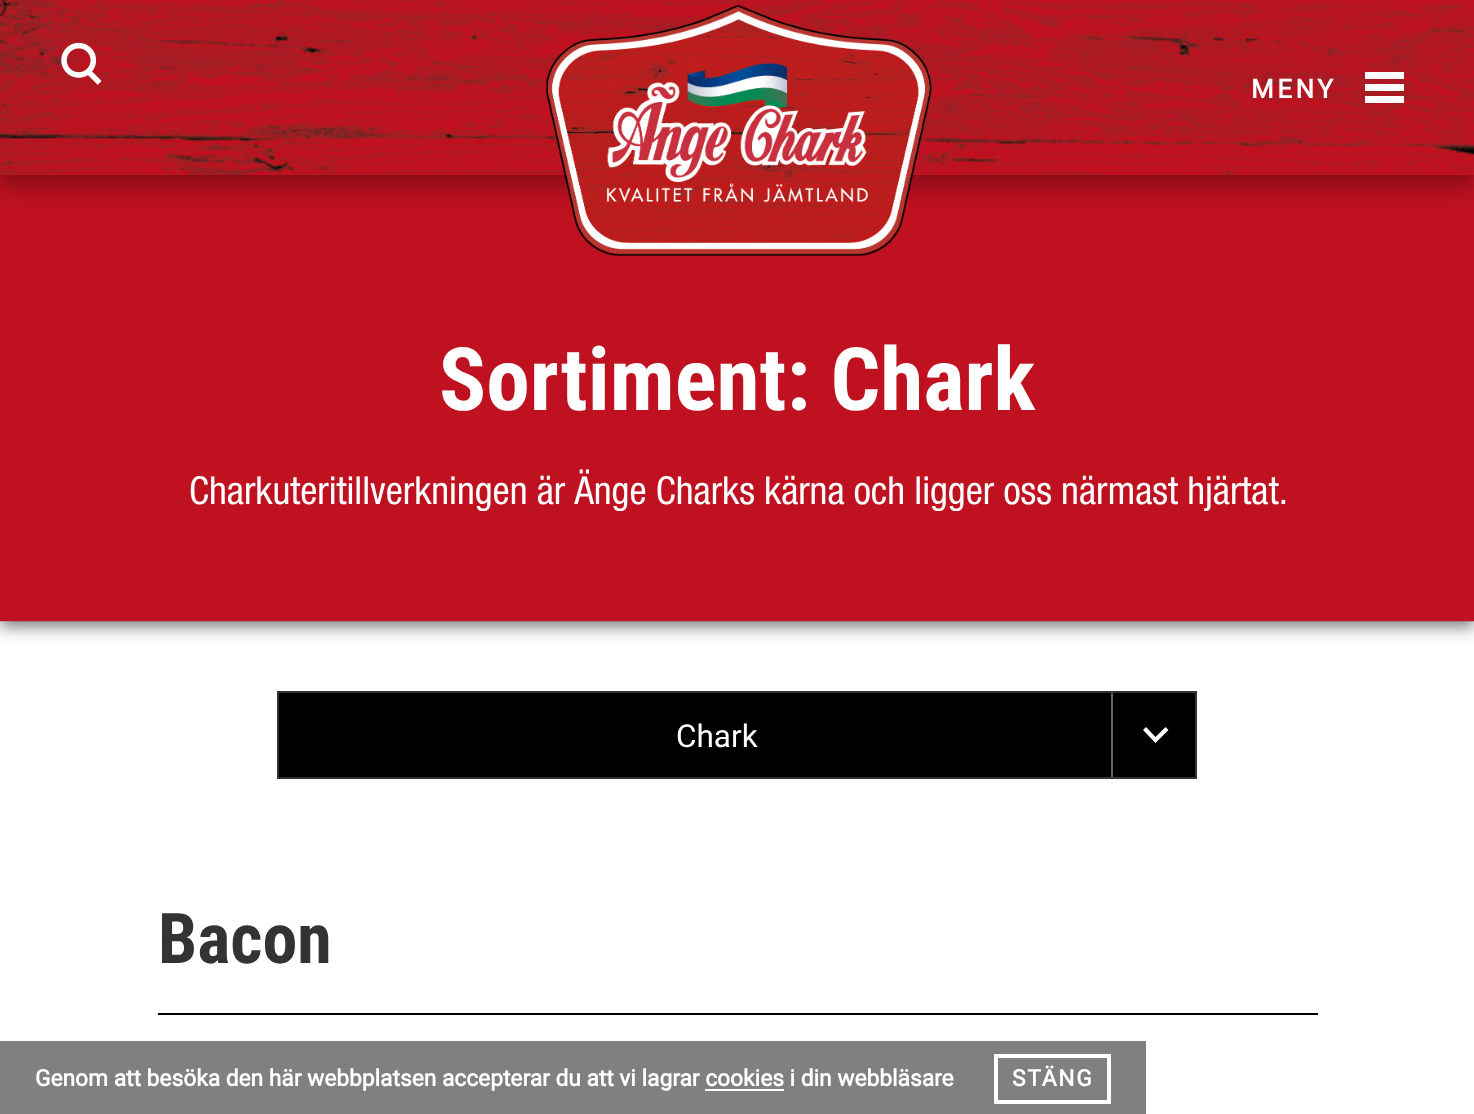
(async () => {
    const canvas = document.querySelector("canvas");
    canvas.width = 1474;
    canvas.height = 1114;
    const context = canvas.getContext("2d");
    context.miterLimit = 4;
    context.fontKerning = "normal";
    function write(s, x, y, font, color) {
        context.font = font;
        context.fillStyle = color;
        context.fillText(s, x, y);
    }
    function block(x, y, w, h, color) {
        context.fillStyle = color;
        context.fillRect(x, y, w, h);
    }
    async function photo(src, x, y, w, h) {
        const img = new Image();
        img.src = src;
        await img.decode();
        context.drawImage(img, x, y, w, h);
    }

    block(0, 0, 1474, 1114, "rgb(255, 255, 255)");
    context.fillStyle = "rgba(0, 0, 0, 0.5)";
    context.filter = "blur(8px)";
    context.beginPath();
    context.rect(0, 137, 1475, 490);
    context.fill();
    context.filter = "none";
    block(0, 175, 1474, 446, "rgb(191, 17, 32)");
    context.fillStyle = "rgba(0, 0, 0, 0.3)";
    context.filter = "blur(10.5px)";
    context.beginPath();
    context.rect(0, 11, 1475, 175);
    context.fill();
    context.filter = "none";
    await photo("media/1.png", 0, 0, 1474, 175);
    await photo("media/2.png", 61, 42, 41, 43);
    await photo("media/3.png", 546, 5, 386, 252);
    context.letterSpacing = "3.5px";
    write("MENY", 1251, 98, "bold 26px Roboto", "rgb(255, 255, 255)");
    block(1365, 84, 39, 7, "rgb(255, 255, 255)");
    block(1365, 72, 39, 7, "rgb(255, 255, 255)");
    block(1365, 96, 39, 7, "rgb(255, 255, 255)");
    block(0, 621, 1474, 1, "rgba(191, 16, 32, 0.25)");
    context.letterSpacing = "0px";
    write("Sortiment: Chark", 439, 410, "bold 87.5px Roboto Condensed", "rgb(255, 255, 255)");
    write("Charkuteritillverkningen är Änge Charks kärna och ligger oss närmast hjärtat.", 189, 504, "38.5px 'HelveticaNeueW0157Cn'", "rgb(255, 255, 255)");
    context.fillStyle = "rgb(0, 0, 0)";
    context.beginPath();
    context.rect(278, 692, 918, 86);
    context.fill();
    context.strokeStyle = "rgb(51, 51, 51)";
    context.lineWidth = 2;
    context.stroke();
    write("Chark", 676, 747, "31.5px Roboto", "rgb(255, 255, 255)");
    block(1111, 693, 2, 84, "rgb(98, 98, 98)");
    context.fillStyle = "rgb(255, 255, 255)";
    context.beginPath();
    context.moveTo(1143, 730);
    context.lineTo(1146, 727);
    context.lineTo(1155.5, 737);
    context.lineTo(1165.5, 727);
    context.lineTo(1168.5, 730);
    context.lineTo(1155.5, 743);
    context.closePath();
    context.fill();
    write("Bacon", 158, 963, "bold 70px Roboto Condensed", "rgb(51, 51, 51)");
    block(158, 1013, 1160, 2, "rgb(0, 0, 0)");
    block(0, 1041, 1146, 73, "rgb(128, 128, 128)");
    write("Genom att besöka den här webbplatsen accepterar du att vi lagrar cookies i din webbläsare", 35, 1086, "bold 22.75px Roboto", "rgb(255, 255, 255)");
    block(705, 1089, 79, 2, "rgb(255, 255, 255)");
    context.strokeStyle = "rgb(255, 255, 255)";
    context.lineWidth = 4;
    context.strokeRect(996, 1056, 113, 46);
    context.letterSpacing = "1.75px";
    write("STÄNG", 1012, 1086, "bold 22.75px Roboto", "rgb(255, 255, 255)");
})();
